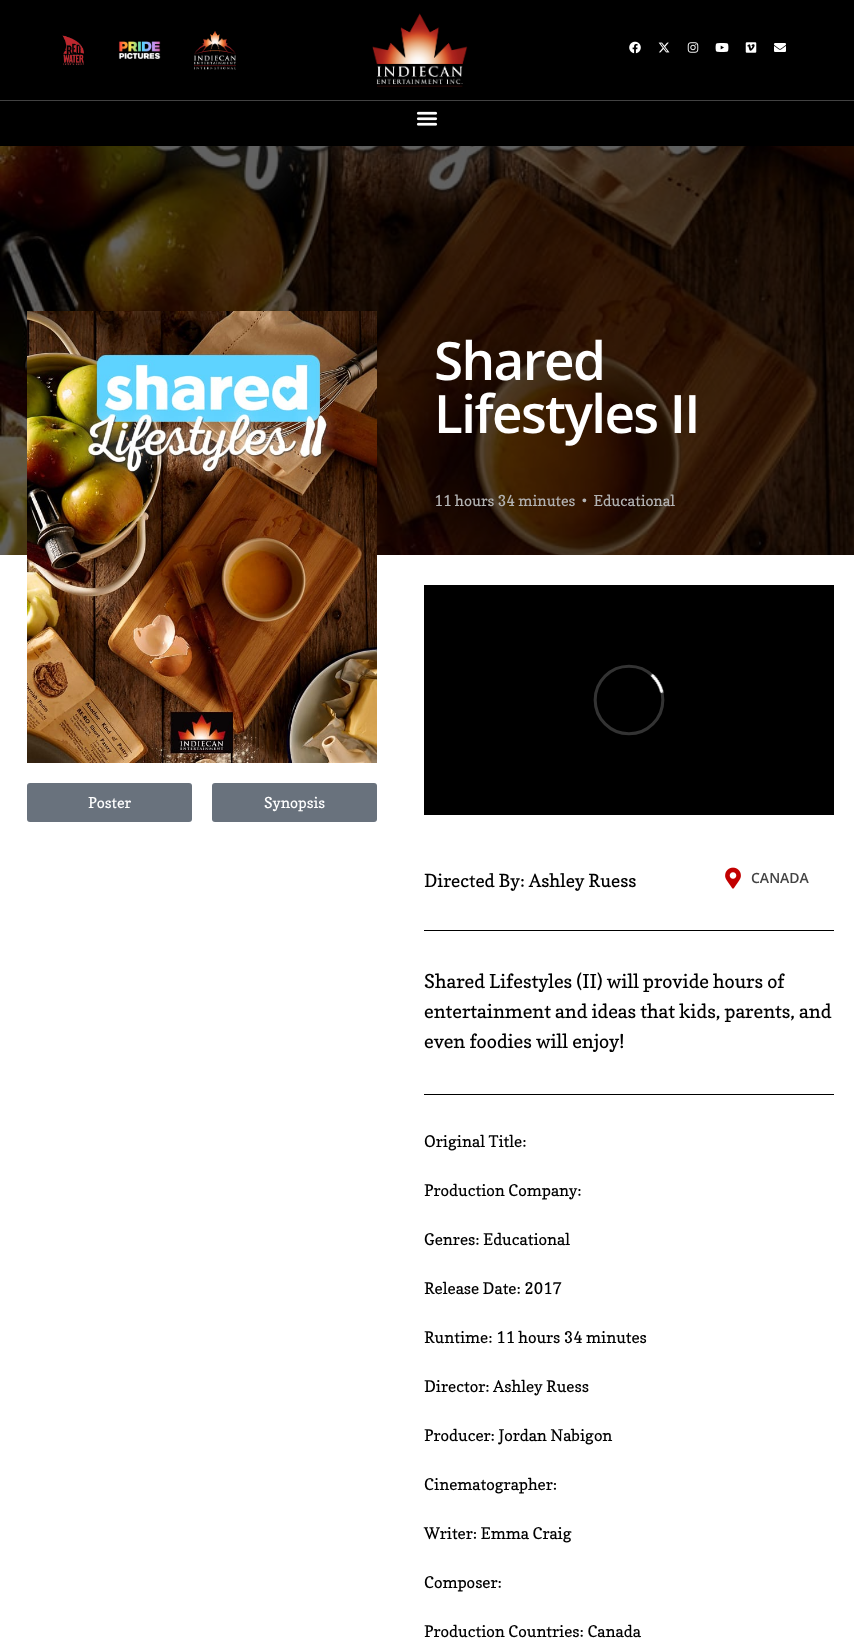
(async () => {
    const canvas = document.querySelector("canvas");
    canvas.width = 854;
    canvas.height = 1650;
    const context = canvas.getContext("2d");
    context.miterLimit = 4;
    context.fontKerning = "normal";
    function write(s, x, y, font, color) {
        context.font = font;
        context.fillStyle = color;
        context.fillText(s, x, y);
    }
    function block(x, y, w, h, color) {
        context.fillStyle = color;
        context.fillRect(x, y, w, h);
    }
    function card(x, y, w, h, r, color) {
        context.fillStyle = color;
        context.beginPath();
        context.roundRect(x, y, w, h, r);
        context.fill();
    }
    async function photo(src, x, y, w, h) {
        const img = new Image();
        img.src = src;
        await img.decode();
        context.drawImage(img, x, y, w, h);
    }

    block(0, 0, 854, 1650, "rgb(255, 255, 255)");
    block(0, 0, 854, 100, "rgb(0, 0, 0)");
    await photo("media/1.png", 62, 35, 22, 31);
    await photo("media/2.png", 118, 41, 43, 18);
    await photo("media/3.png", 194, 31, 42, 39);
    await photo("media/4.png", 372, 13, 96, 74);
    await photo("media/5.png", 629, 41, 12, 13);
    await photo("media/6.png", 658, 42, 12, 11);
    await photo("media/7.png", 687, 42, 12, 11);
    await photo("media/8.png", 715, 43, 14, 9);
    await photo("media/9.png", 745, 42, 12, 11);
    await photo("media/10.png", 774, 43, 12, 9);
    block(0, 101, 854, 45, "rgb(0, 0, 0)");
    block(0, 100, 854, 1, "rgb(66, 66, 66)");
    await photo("media/11.png", 416, 111, 22, 15);
    await photo("media/12.png", 0, 146, 854, 409);
    await photo("media/13.png", 27, 311, 350, 452);
    card(27, 783, 165, 39, 3, "rgb(105, 114, 125)");
    write("Poster", 88, 808, "15px Copse", "rgb(255, 255, 255)");
    card(212, 783, 165, 39, 3, "rgb(105, 114, 125)");
    write("Synopsis", 264, 808, "15px Copse", "rgb(255, 255, 255)");
    context.letterSpacing = "-1.6px";
    write("Shared", 434, 380, "600 53px Open Sans", "rgb(255, 255, 255)");
    write("Lifestyles II", 434, 433, "600 53px Open Sans", "rgb(255, 255, 255)");
    context.letterSpacing = "0px";
    write("11 hours 34 minutes  •  Educational", 434, 506, "15px Copse", "rgb(179, 179, 179)");
    await photo("media/14.png", 424, 585, 410, 230);
    write("Directed By: Ashley Ruess", 424, 887, "18px Copse", "rgb(0, 0, 0)");
    await photo("media/15.png", 725, 867, 16, 22);
    write("CANADA", 751, 883, "600 14px Open Sans", "rgb(68, 68, 68)");
    block(424, 930, 410, 1, "rgb(0, 0, 0)");
    write("Shared Lifestyles (II) will provide hours of", 424, 988, "19px Copse", "rgb(0, 0, 0)");
    write("entertainment and ideas that kids, parents, and", 424, 1018, "19px Copse", "rgb(0, 0, 0)");
    write("even foodies will enjoy!", 424, 1048, "19px Copse", "rgb(0, 0, 0)");
    block(424, 1094, 410, 1, "rgb(0, 0, 0)");
    write("Original Title:", 424, 1147, "16px Copse", "rgb(0, 0, 0)");
    write("Production Company:", 424, 1196, "16px Copse", "rgb(0, 0, 0)");
    write("Genres: Educational", 424, 1245, "16px Copse", "rgb(0, 0, 0)");
    write("Release Date: 2017", 424, 1294, "16px Copse", "rgb(0, 0, 0)");
    write("Runtime: 11 hours 34 minutes", 424, 1343, "16px Copse", "rgb(0, 0, 0)");
    write("Director: Ashley Ruess", 424, 1392, "16px Copse", "rgb(0, 0, 0)");
    write("Producer: Jordan Nabigon", 424, 1441, "16px Copse", "rgb(0, 0, 0)");
    write("Cinematographer:", 424, 1490, "16px Copse", "rgb(0, 0, 0)");
    write("Writer: Emma Craig", 424, 1539, "16px Copse", "rgb(0, 0, 0)");
    write("Composer:", 424, 1588, "16px Copse", "rgb(0, 0, 0)");
    write("Production Countries: Canada", 424, 1637, "16px Copse", "rgb(0, 0, 0)");
})();
